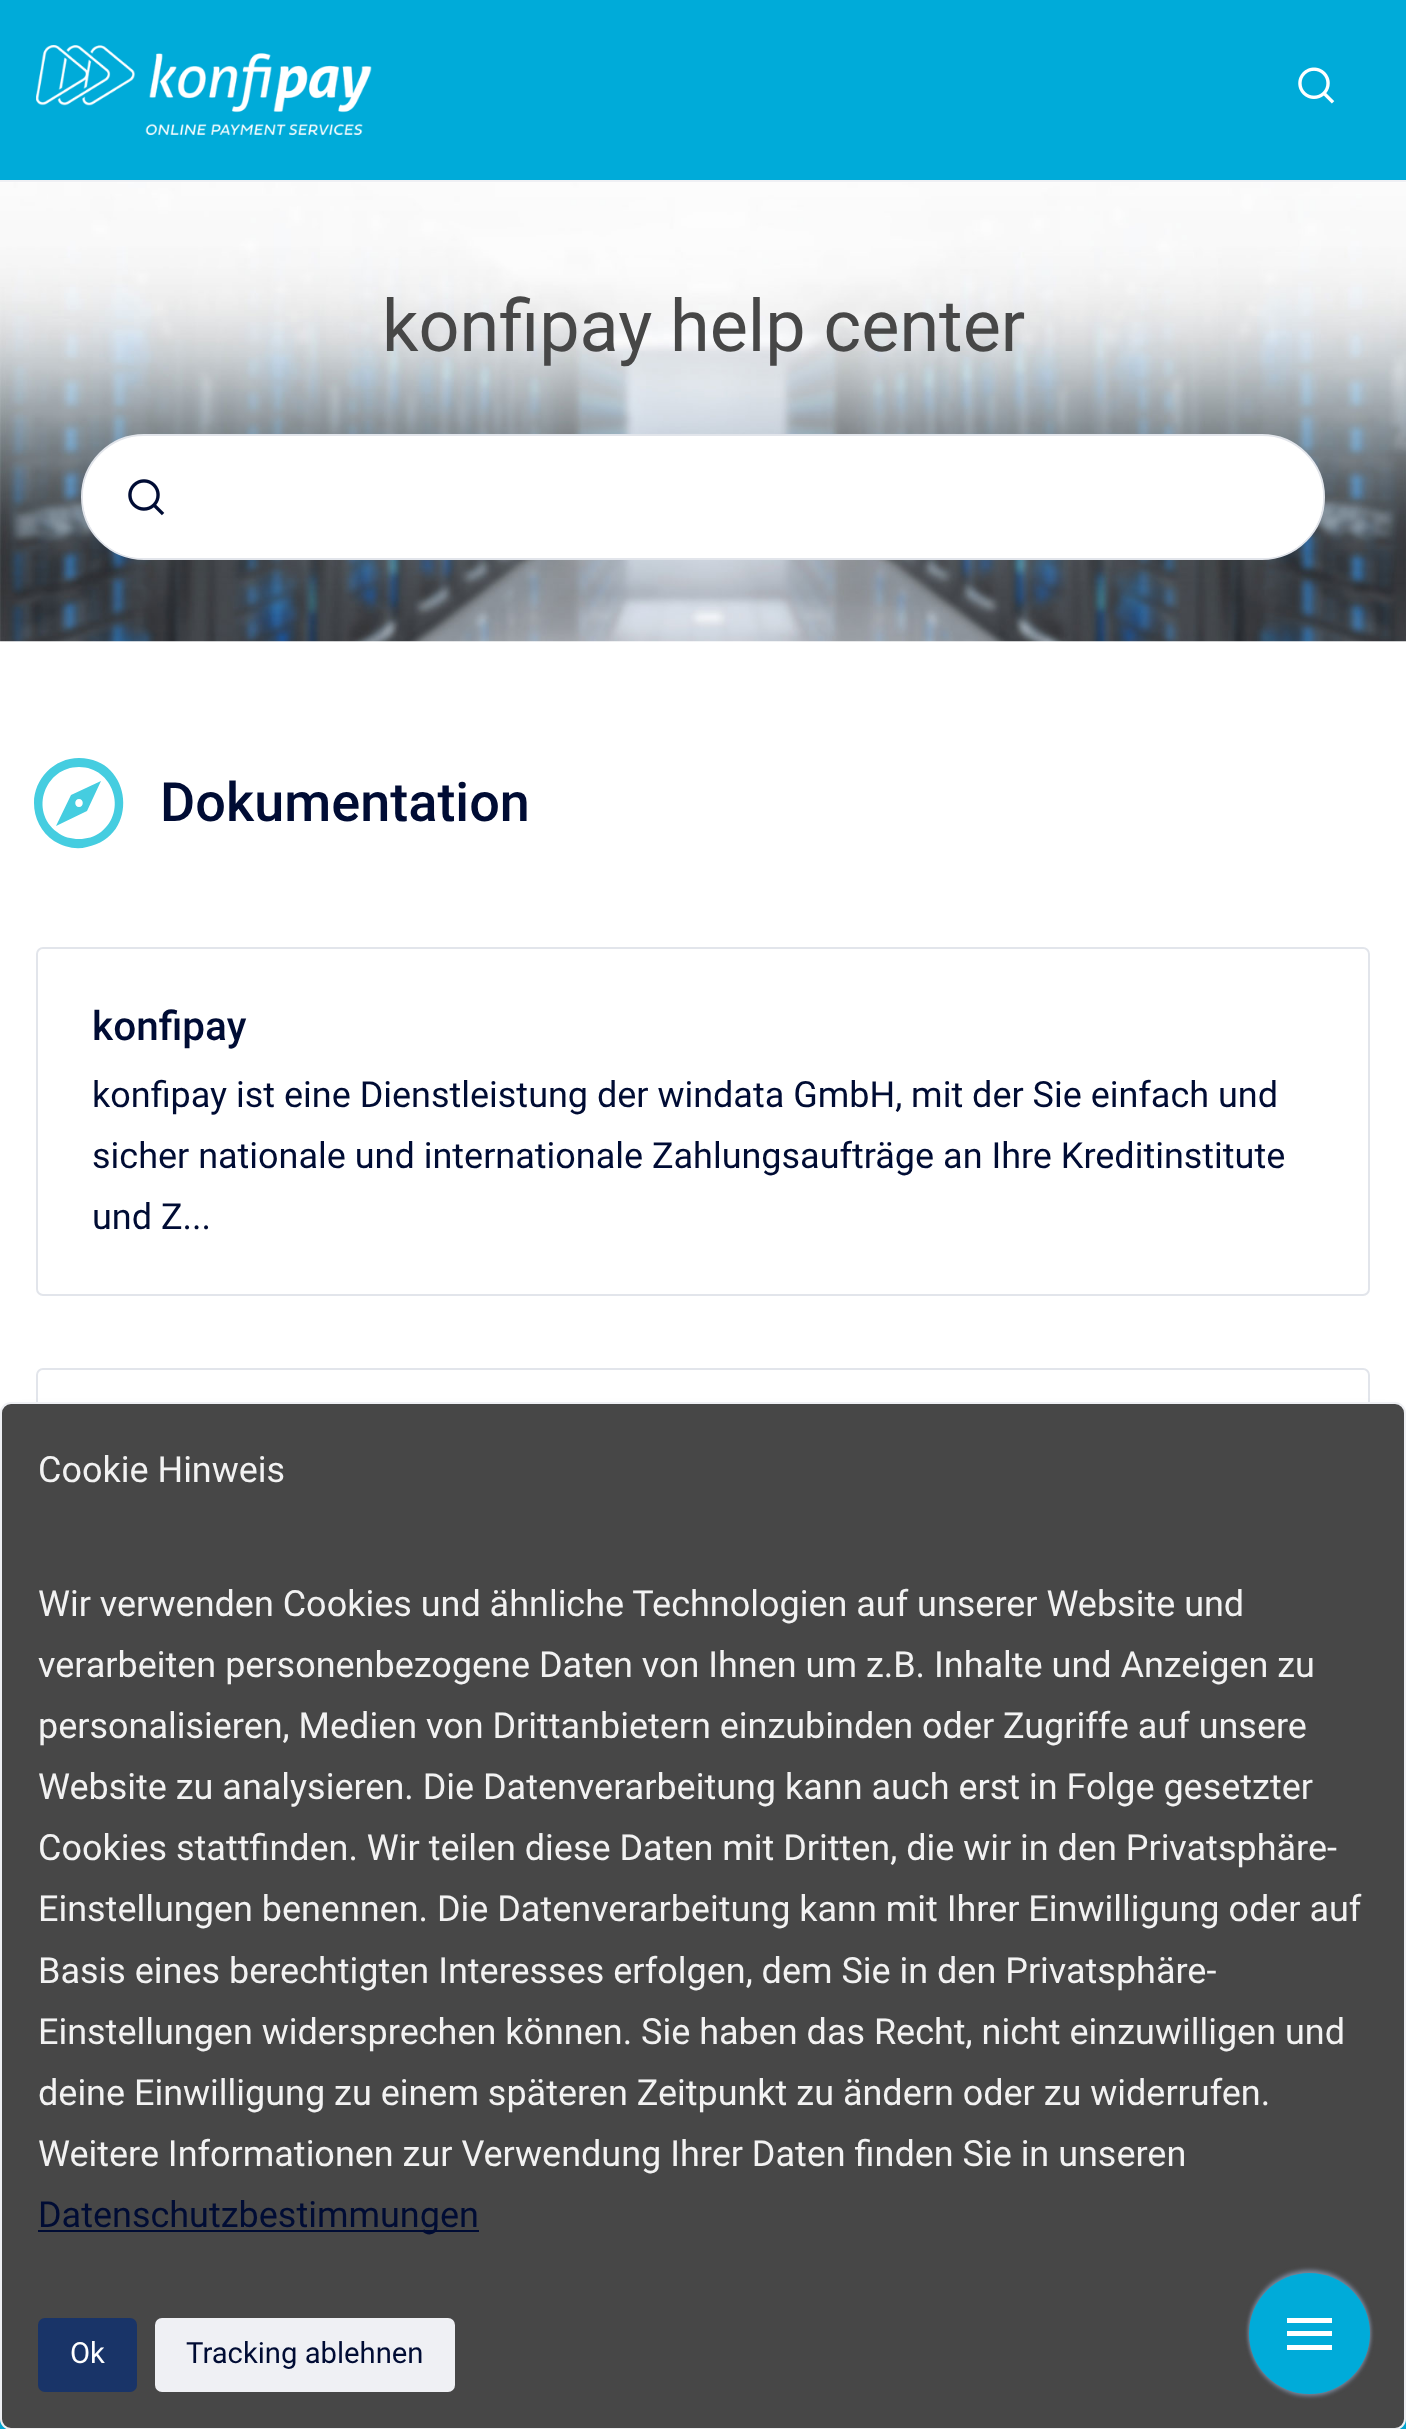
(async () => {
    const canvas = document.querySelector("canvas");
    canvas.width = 1406;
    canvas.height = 2429;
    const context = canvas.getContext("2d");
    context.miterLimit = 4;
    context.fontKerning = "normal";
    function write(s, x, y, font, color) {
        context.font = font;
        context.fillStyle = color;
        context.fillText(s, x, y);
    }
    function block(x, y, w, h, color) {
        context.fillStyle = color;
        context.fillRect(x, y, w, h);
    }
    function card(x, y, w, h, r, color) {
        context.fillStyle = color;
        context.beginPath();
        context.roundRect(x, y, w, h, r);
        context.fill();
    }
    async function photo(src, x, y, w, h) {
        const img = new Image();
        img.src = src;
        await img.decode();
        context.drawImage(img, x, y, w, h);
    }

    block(0, 0, 1406, 2429, "rgb(255, 255, 255)");
    block(0, 0, 1406, 180, "rgb(0, 171, 217)");
    block(0, 180, 1406, 2, "rgb(239, 240, 244)");
    await photo("media/1.png", 36, 45, 336, 90);
    await photo("media/2.png", 1298, 67, 37, 37);
    await photo("media/3.png", 0, 182, 1406, 460);
    write("konfipay help center", 382, 351, "72px Roboto", "rgb(71, 71, 71)");
    context.fillStyle = "rgb(255, 255, 255)";
    context.beginPath();
    context.roundRect(82, 435, 1242, 124, 62);
    context.fill();
    context.strokeStyle = "rgb(226, 229, 235)";
    context.lineWidth = 2;
    context.stroke();
    card(83, 437, 1240, 121, 60.5, "rgb(255, 255, 255)");
    await photo("media/4.png", 128, 479, 37, 37);
    context.fillStyle = "rgb(69, 205, 224)";
    context.beginPath();
    context.moveTo(56, 826);
    context.lineTo(71, 795);
    context.lineTo(101, 781);
    context.lineTo(87, 811);
    context.closePath();
    context.moveTo(79, 799);
    context.bezierCurveTo(74, 799, 74, 807, 79, 807);
    context.bezierCurveTo(84, 807, 84, 799, 79, 799);
    context.closePath();
    context.moveTo(79, 758);
    context.bezierCurveTo(133, 758, 140, 837, 87, 847);
    context.bezierCurveTo(76, 850, 64, 847, 54, 841);
    context.bezierCurveTo(41, 832, 34, 818, 34, 803);
    context.bezierCurveTo(34, 779, 54, 758, 79, 758);
    context.closePath();
    context.moveTo(79, 767);
    context.bezierCurveTo(45, 767, 29, 811, 57, 832);
    context.bezierCurveTo(63, 837, 71, 839, 79, 839);
    context.bezierCurveTo(87, 839, 94, 837, 101, 832);
    context.bezierCurveTo(128, 811, 113, 767, 79, 767);
    context.closePath();
    context.fill();
    write("Dokumentation", 160, 821, "500 54px Roboto", "rgb(0, 12, 52)");
    context.beginPath();
    context.roundRect(37, 948, 1332, 347, 6);
    context.stroke();
    write("konfipay", 92, 1040, "500 40.5px Roboto", "rgb(0, 12, 52)");
    write("konfipay ist eine Dienstleistung der windata GmbH, mit der Sie einfach und", 92, 1107, "36px Roboto", "rgb(0, 12, 52)");
    write("sicher nationale und internationale Zahlungsaufträge an Ihre Kreditinstitute", 92, 1168, "36px Roboto", "rgb(0, 12, 52)");
    write("und Z...", 92, 1229, "36px Roboto", "rgb(0, 12, 52)");
    context.beginPath();
    context.roundRect(37, 1369, 1332, 345, 6);
    context.stroke();
    block(0, 2419, 1406, 10, "rgb(0, 171, 217)");
    context.fillStyle = "rgba(0, 0, 0, 0.1)";
    context.filter = "blur(17px)";
    context.beginPath();
    context.roundRect(7, 1431, 1393, 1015, 5);
    context.fill();
    context.filter = "none";
    context.fillStyle = "rgb(71, 71, 71)";
    context.beginPath();
    context.roundRect(1, 1403, 1404, 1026, 10);
    context.fill();
    context.strokeStyle = "rgb(239, 240, 244)";
    context.stroke();
    write("Cookie Hinweis", 38, 1482, "36px Roboto", "rgb(242, 242, 242)");
    write("Wir verwenden Cookies und ähnliche Technologien auf unserer Website und", 38, 1616, "36px Roboto", "rgb(242, 242, 242)");
    write("verarbeiten personenbezogene Daten von Ihnen um z.B. Inhalte und Anzeigen zu", 38, 1677, "36px Roboto", "rgb(242, 242, 242)");
    write("personalisieren, Medien von Drittanbietern einzubinden oder Zugriffe auf unsere", 38, 1738, "36px Roboto", "rgb(242, 242, 242)");
    write("Website zu analysieren. Die Datenverarbeitung kann auch erst in Folge gesetzter", 38, 1799, "36px Roboto", "rgb(242, 242, 242)");
    write("Cookies stattfinden. Wir teilen diese Daten mit Dritten, die wir in den Privatsphäre-", 38, 1860, "36px Roboto", "rgb(242, 242, 242)");
    write("Einstellungen benennen. Die Datenverarbeitung kann mit Ihrer Einwilligung oder auf", 38, 1921, "36px Roboto", "rgb(242, 242, 242)");
    write("Basis eines berechtigten Interesses erfolgen, dem Sie in den Privatsphäre-", 38, 1983, "36px Roboto", "rgb(242, 242, 242)");
    write("Einstellungen widersprechen können. Sie haben das Recht, nicht einzuwilligen und", 38, 2044, "36px Roboto", "rgb(242, 242, 242)");
    write("deine Einwilligung zu einem späteren Zeitpunkt zu ändern oder zu widerrufen.", 38, 2105, "36px Roboto", "rgb(242, 242, 242)");
    write("Weitere Informationen zur Verwendung Ihrer Daten finden Sie in unseren", 38, 2166, "36px Roboto", "rgb(242, 242, 242)");
    block(38, 2230, 441, 2, "rgb(0, 12, 52)");
    write("Datenschutzbestimmungen", 38, 2227, "36px Roboto", "rgb(0, 12, 52)");
    card(38, 2318, 99, 74, 7, "rgb(25, 52, 104)");
    write("Ok", 70, 2363, "29.25px Roboto", "rgb(255, 255, 255)");
    card(155, 2318, 300, 74, 7, "rgb(239, 240, 244)");
    write("Tracking ablehnen", 186, 2363, "29.25px Roboto", "rgb(0, 12, 52)");
    context.fillStyle = "rgb(122, 134, 154)";
    context.filter = "blur(2px)";
    context.beginPath();
    context.roundRect(1249, 2270, 121, 122, 60.5);
    context.fill();
    context.filter = "none";
    context.filter = "blur(2px)";
    context.beginPath();
    context.roundRect(1249, 2275, 121, 121, 60.5);
    context.fill();
    context.filter = "none";
    context.fillStyle = "rgb(0, 171, 217)";
    context.beginPath();
    context.arc(1309.5, 2333.5, 60.5, 0, Math.PI * 2);
    context.fill();
    block(1287, 2318, 45, 5, "rgb(255, 255, 255)");
    block(1287, 2331, 45, 5, "rgb(255, 255, 255)");
    block(1287, 2345, 45, 5, "rgb(255, 255, 255)");
})();
